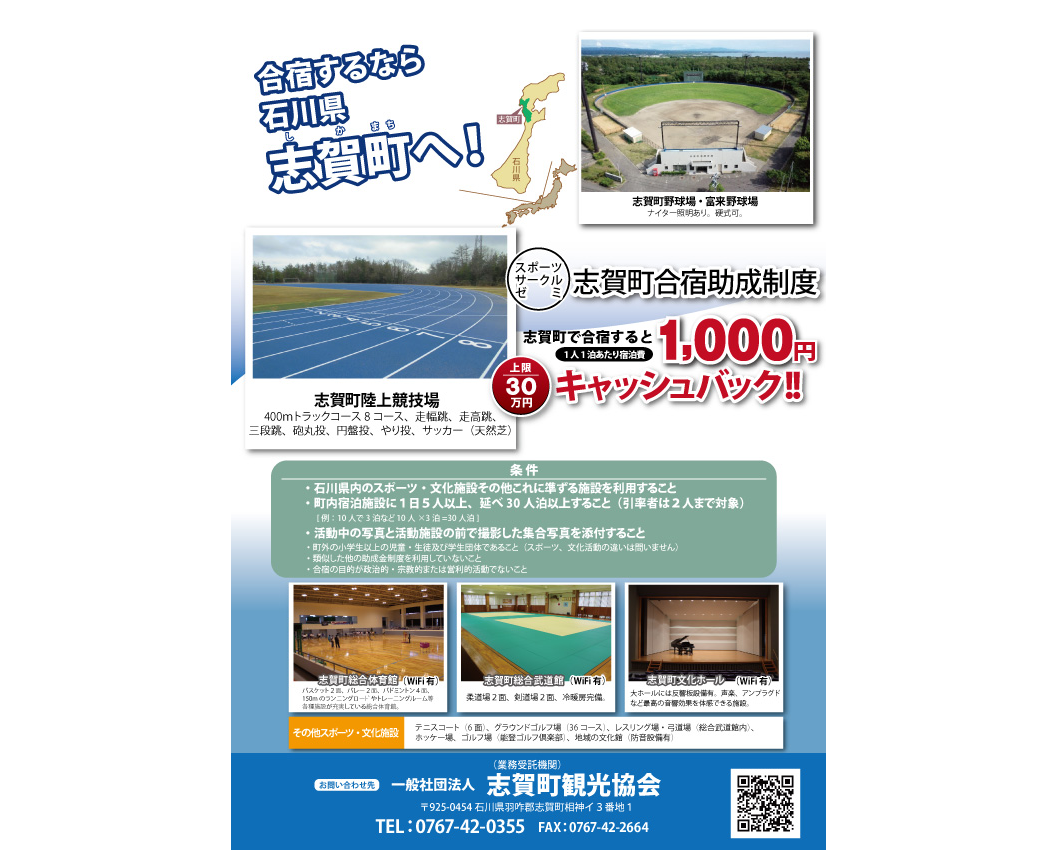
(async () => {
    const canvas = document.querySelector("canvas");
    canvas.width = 1057;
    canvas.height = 864;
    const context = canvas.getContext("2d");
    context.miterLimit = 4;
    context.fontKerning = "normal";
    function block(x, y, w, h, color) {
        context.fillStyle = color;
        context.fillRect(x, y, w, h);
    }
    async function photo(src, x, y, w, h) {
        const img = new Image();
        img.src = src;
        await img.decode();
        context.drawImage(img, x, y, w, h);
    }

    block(0, 0, 1057, 864, "rgb(255, 255, 255)");
    await photo("media/1.png", 231, 29, 595, 821);
})();
